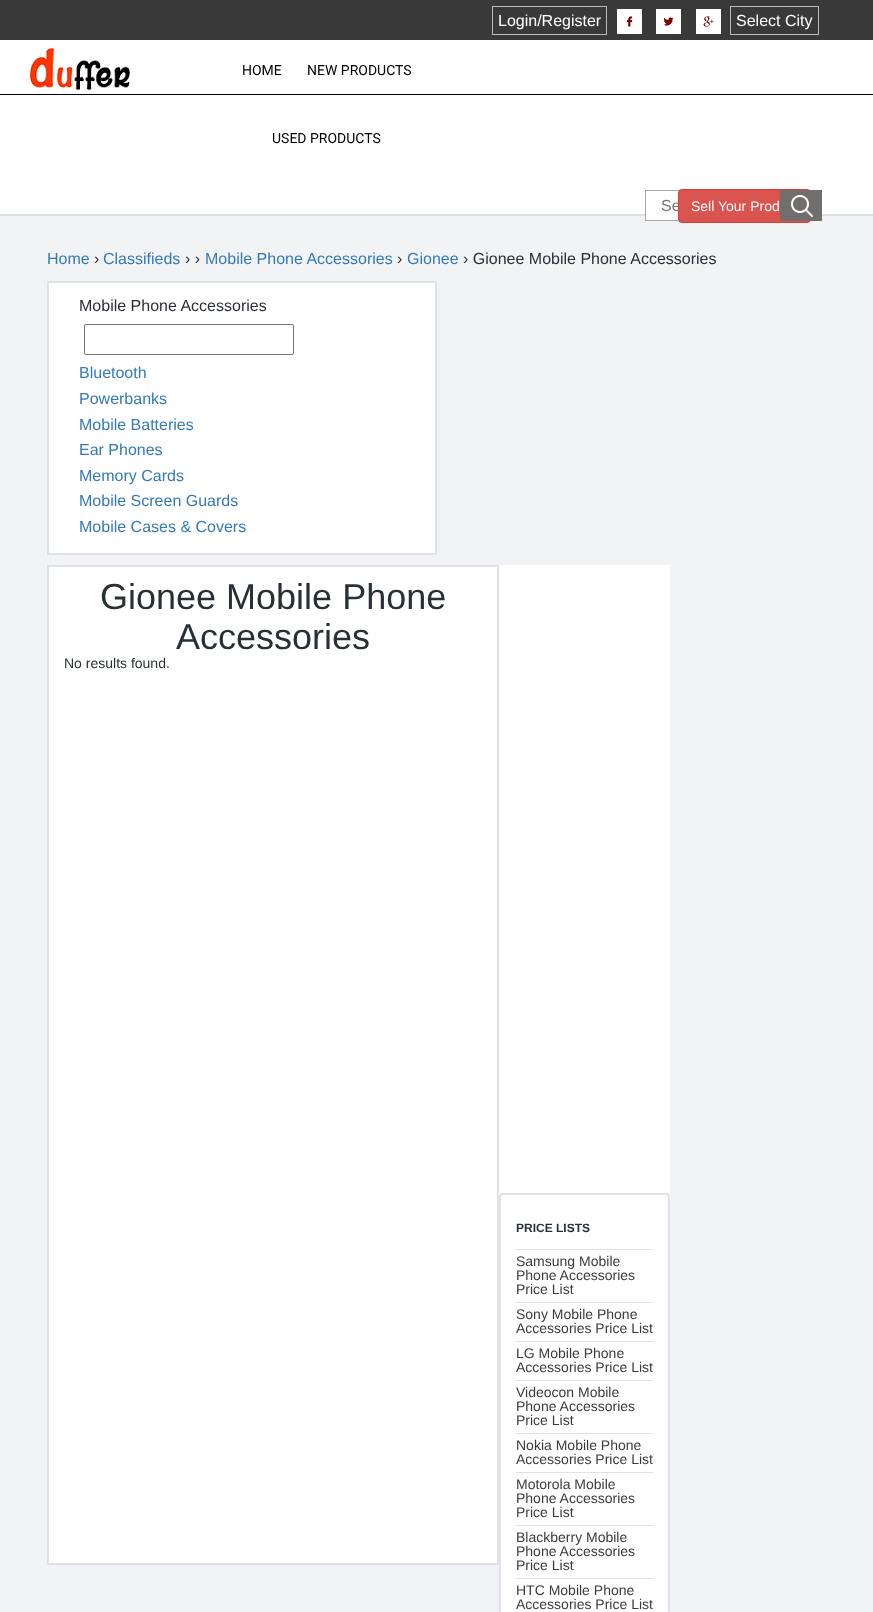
(async () => {
    const canvas = document.querySelector("canvas");
    canvas.width = 873;
    canvas.height = 1612;
    const context = canvas.getContext("2d");
    context.miterLimit = 4;
    context.fontKerning = "normal";
    function write(s, x, y, font, color) {
        context.font = font;
        context.fillStyle = color;
        context.fillText(s, x, y);
    }
    function block(x, y, w, h, color) {
        context.fillStyle = color;
        context.fillRect(x, y, w, h);
    }
    async function photo(src, x, y, w, h) {
        const img = new Image();
        img.src = src;
        await img.decode();
        context.drawImage(img, x, y, w, h);
    }

    block(0, 0, 873, 1612, "rgb(255, 255, 255)");
    block(0, 0, 873, 40, "rgb(57, 57, 57)");
    context.strokeStyle = "rgb(187, 187, 187)";
    context.strokeRect(492.5, 6.5, 114, 28);
    write("Login/Register", 498, 26, "16px Liberation Sans", "rgb(255, 255, 255)");
    await photo("media/1.png", 617, 9, 25, 25);
    await photo("media/2.png", 656, 9, 25, 25);
    await photo("media/3.png", 696, 9, 25, 25);
    context.strokeRect(730.5, 6.5, 88, 28);
    write("Select City", 736, 26, "16px Liberation Sans", "rgb(255, 255, 255)");
    block(0, 94, 873, 1, "rgb(0, 0, 0)");
    await photo("media/4.png", 30, 48, 100, 42);
    write("HOME", 242, 75, "14px Roboto", "rgb(0, 0, 0)");
    write("NEW PRODUCTS", 307, 75, "14px Roboto", "rgb(0, 0, 0)");
    write("USED PRODUCTS", 272, 143, "14px Roboto", "rgb(0, 0, 0)");
    block(0, 216, 873, 1396, "rgb(242, 243, 245)");
    block(0, 214, 873, 2, "rgb(223, 225, 232)");
    block(646, 214, 33, 6, "rgb(255, 255, 255)");
    context.strokeStyle = "rgb(171, 168, 168)";
    context.strokeRect(645.5, 190.5, 134, 30);
    write("Se", 661, 211, "16px Liberation Sans", "rgb(117, 117, 117)");
    context.fillStyle = "rgb(217, 83, 79)";
    context.beginPath();
    context.roundRect(678.5, 189.5, 132, 33, 3.5);
    context.fill();
    context.strokeStyle = "rgb(212, 63, 58)";
    context.stroke();
    block(780, 190, 42, 31, "rgb(113, 110, 110)");
    await photo("media/5.png", 791, 195, 22, 22);
    write("Sell Your Prod", 691, 211, "14px Liberation Sans", "rgb(255, 255, 255)");
    write("Home", 47, 264, "16px Liberation Sans", "rgb(51, 122, 183)");
    write("›", 94, 264, "16px Liberation Sans", "rgb(41, 47, 54)");
    write("Classifieds", 103, 264, "16px Liberation Sans", "rgb(51, 122, 183)");
    write("› ›", 185, 264, "16px Liberation Sans", "rgb(41, 47, 54)");
    write("Mobile Phone Accessories", 205, 264, "16px Liberation Sans", "rgb(51, 122, 183)");
    write("›", 397, 264, "16px Liberation Sans", "rgb(41, 47, 54)");
    write("Gionee", 407, 264, "16px Liberation Sans", "rgb(51, 122, 183)");
    write("› Gionee Mobile Phone Accessories", 463, 264, "16px Liberation Sans", "rgb(41, 47, 54)");
    context.fillStyle = "rgb(255, 255, 255)";
    context.beginPath();
    context.rect(48, 282, 388, 272);
    context.fill();
    context.strokeStyle = "rgb(223, 225, 232)";
    context.lineWidth = 2;
    context.stroke();
    write("Mobile Phone Accessories", 79, 311, "16px Liberation Sans", "rgb(41, 47, 54)");
    context.beginPath();
    context.roundRect(84.5, 324.5, 209, 30, 1.5);
    context.strokeStyle = "rgb(118, 118, 118)";
    context.lineWidth = 1;
    context.stroke();
    write("Bluetooth", 79, 378, "16px Liberation Sans", "rgb(51, 122, 183)");
    write("Powerbanks", 79, 404, "16px Liberation Sans", "rgb(51, 122, 183)");
    write("Mobile Batteries", 79, 430, "16px Liberation Sans", "rgb(51, 122, 183)");
    write("Ear Phones", 79, 455, "16px Liberation Sans", "rgb(51, 122, 183)");
    write("Memory Cards", 79, 481, "16px Liberation Sans", "rgb(51, 122, 183)");
    write("Mobile Screen Guards", 79, 506, "16px Liberation Sans", "rgb(51, 122, 183)");
    write("Mobile Cases & Covers", 79, 532, "16px Liberation Sans", "rgb(51, 122, 183)");
    context.fillStyle = "rgb(255, 255, 255)";
    context.beginPath();
    context.rect(48, 566, 450, 998);
    context.fill();
    context.strokeStyle = "rgb(223, 225, 232)";
    context.lineWidth = 2;
    context.stroke();
    write("Gionee Mobile Phone", 100, 609, "36px Liberation Sans", "rgb(41, 47, 54)");
    write("Accessories", 176, 649, "36px Liberation Sans", "rgb(41, 47, 54)");
    write("No results found.", 64, 668, "14px Liberation Sans", "rgb(41, 47, 54)");
    block(499, 565, 171, 1047, "rgb(255, 255, 255)");
    context.beginPath();
    context.roundRect(500, 1194, 169, 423, 3);
    context.stroke();
    block(516, 1249, 137, 1, "rgb(223, 225, 232)");
    write("PRICE LISTS", 516, 1232, "bold 12px Liberation Sans", "rgb(41, 47, 54)");
    write("Samsung Mobile", 516, 1266, "14px Liberation Sans", "rgb(59, 59, 59)");
    write("Phone Accessories", 516, 1280, "14px Liberation Sans", "rgb(59, 59, 59)");
    write("Price List", 516, 1294, "14px Liberation Sans", "rgb(59, 59, 59)");
    block(516, 1302, 137, 1, "rgb(223, 225, 232)");
    write("Sony Mobile Phone", 516, 1319, "14px Liberation Sans", "rgb(59, 59, 59)");
    write("Accessories Price List", 516, 1333, "14px Liberation Sans", "rgb(59, 59, 59)");
    block(516, 1341, 137, 1, "rgb(223, 225, 232)");
    write("LG Mobile Phone", 516, 1358, "14px Liberation Sans", "rgb(59, 59, 59)");
    write("Accessories Price List", 516, 1372, "14px Liberation Sans", "rgb(59, 59, 59)");
    block(516, 1380, 137, 1, "rgb(223, 225, 232)");
    write("Videocon Mobile", 516, 1397, "14px Liberation Sans", "rgb(59, 59, 59)");
    write("Phone Accessories", 516, 1411, "14px Liberation Sans", "rgb(59, 59, 59)");
    write("Price List", 516, 1425, "14px Liberation Sans", "rgb(59, 59, 59)");
    block(516, 1433, 137, 1, "rgb(223, 225, 232)");
    write("Nokia Mobile Phone", 516, 1450, "14px Liberation Sans", "rgb(59, 59, 59)");
    write("Accessories Price List", 516, 1464, "14px Liberation Sans", "rgb(59, 59, 59)");
    block(516, 1472, 137, 1, "rgb(223, 225, 232)");
    write("Motorola Mobile", 516, 1489, "14px Liberation Sans", "rgb(59, 59, 59)");
    write("Phone Accessories", 516, 1503, "14px Liberation Sans", "rgb(59, 59, 59)");
    write("Price List", 516, 1517, "14px Liberation Sans", "rgb(59, 59, 59)");
    block(516, 1525, 137, 1, "rgb(223, 225, 232)");
    write("Blackberry Mobile", 516, 1542, "14px Liberation Sans", "rgb(59, 59, 59)");
    write("Phone Accessories", 516, 1556, "14px Liberation Sans", "rgb(59, 59, 59)");
    write("Price List", 516, 1570, "14px Liberation Sans", "rgb(59, 59, 59)");
    block(516, 1578, 137, 1, "rgb(223, 225, 232)");
    write("HTC Mobile Phone", 516, 1595, "14px Liberation Sans", "rgb(59, 59, 59)");
    write("Accessories Price List", 516, 1609, "14px Liberation Sans", "rgb(59, 59, 59)");
})();
